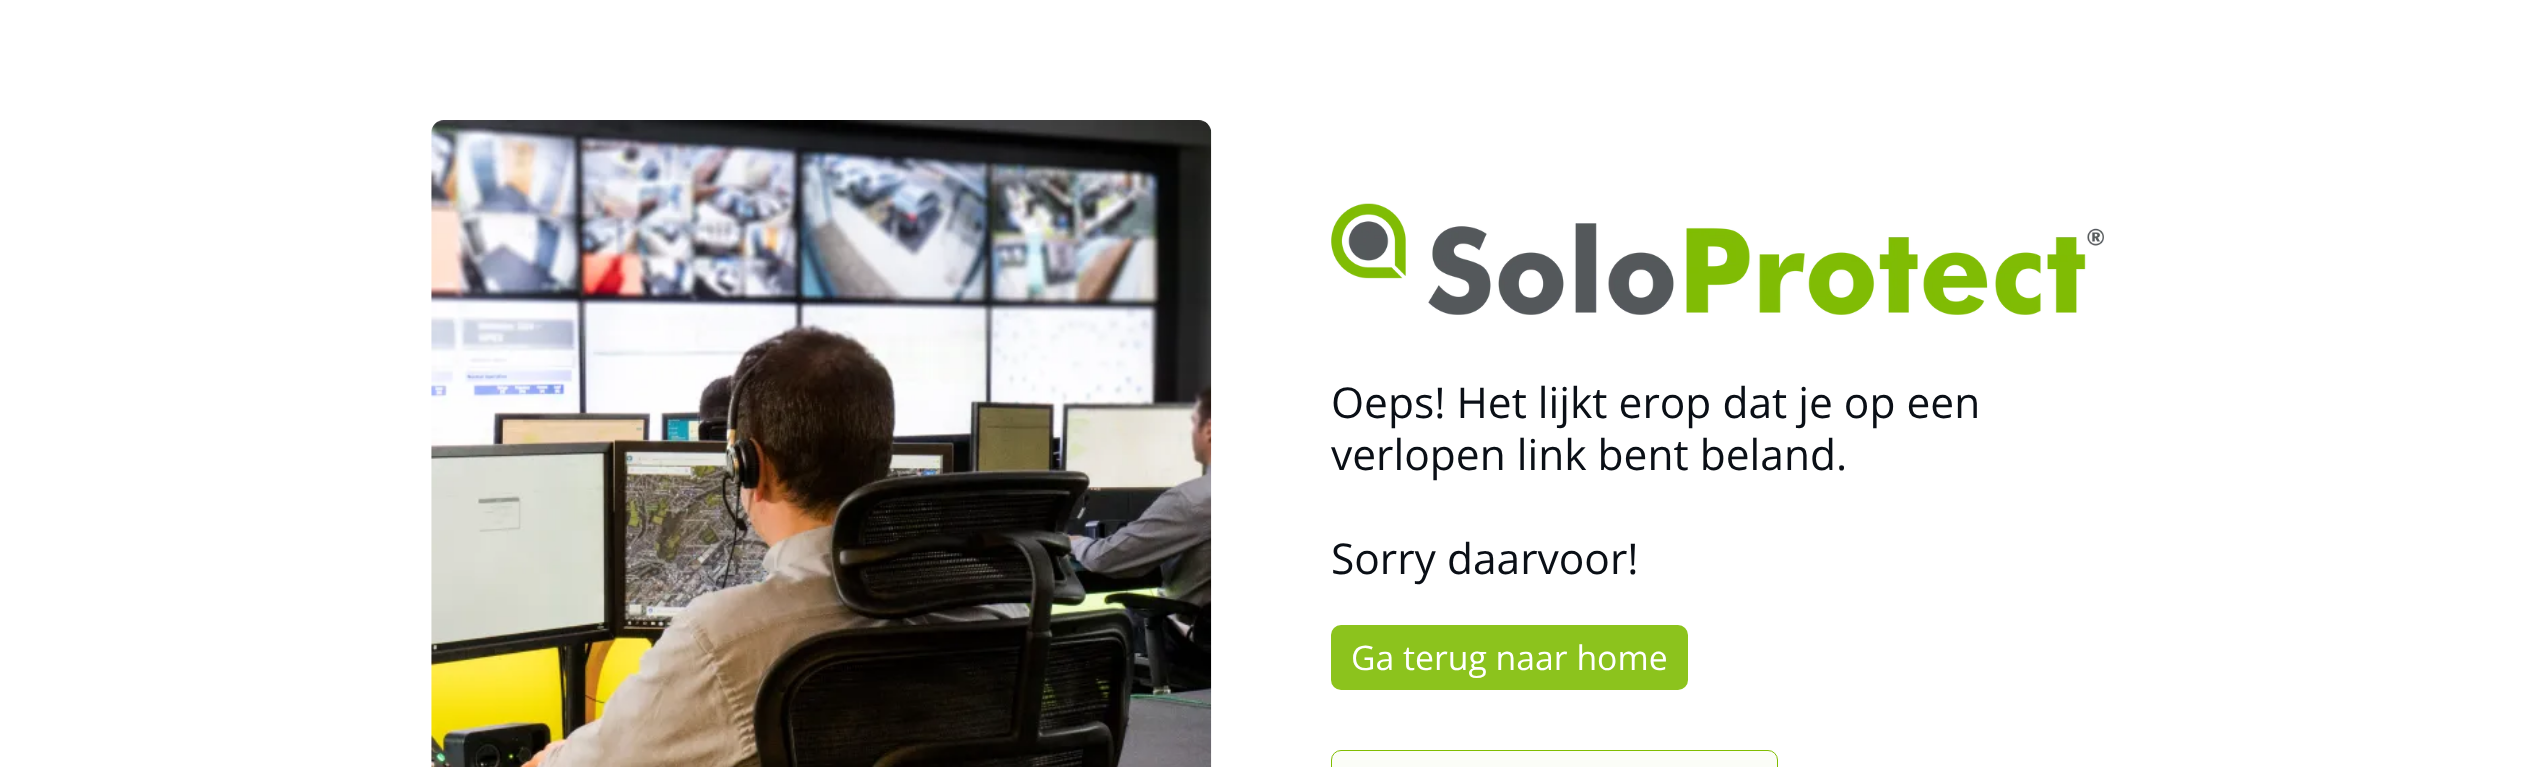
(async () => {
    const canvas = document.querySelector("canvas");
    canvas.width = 2542;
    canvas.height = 767;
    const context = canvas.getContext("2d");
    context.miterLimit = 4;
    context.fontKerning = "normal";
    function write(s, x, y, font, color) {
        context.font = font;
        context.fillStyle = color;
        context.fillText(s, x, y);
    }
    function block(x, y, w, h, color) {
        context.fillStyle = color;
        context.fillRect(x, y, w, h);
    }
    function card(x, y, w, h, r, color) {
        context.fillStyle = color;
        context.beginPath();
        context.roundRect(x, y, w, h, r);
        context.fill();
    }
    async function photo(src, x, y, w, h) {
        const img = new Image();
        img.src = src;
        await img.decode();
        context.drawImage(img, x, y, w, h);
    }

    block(0, 0, 2542, 767, "rgb(255, 255, 255)");
    await photo("media/1.png", 431, 120, 781, 647);
    await photo("media/2.png", 1331, 203, 773, 112);
    write("Oeps! Het lijkt erop dat je op een", 1331, 418, "42.5px Open Sans", "rgb(10, 15, 22)");
    write("verlopen link bent beland.", 1331, 470, "42.5px Open Sans", "rgb(10, 15, 22)");
    write("Sorry daarvoor!", 1331, 574, "42.5px Open Sans", "rgb(10, 15, 22)");
    card(1331, 625, 357, 65, 10, "rgb(140, 195, 29)");
    write("Ga terug naar home", 1351, 670, "33.75px Open Sans", "rgb(255, 255, 255)");
    context.fillStyle = "rgb(251, 253, 247)";
    context.beginPath();
    context.roundRect(1331.5, 750.5, 446, 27, 9.5);
    context.fill();
    context.strokeStyle = "rgb(128, 189, 0)";
    context.stroke();
})();
